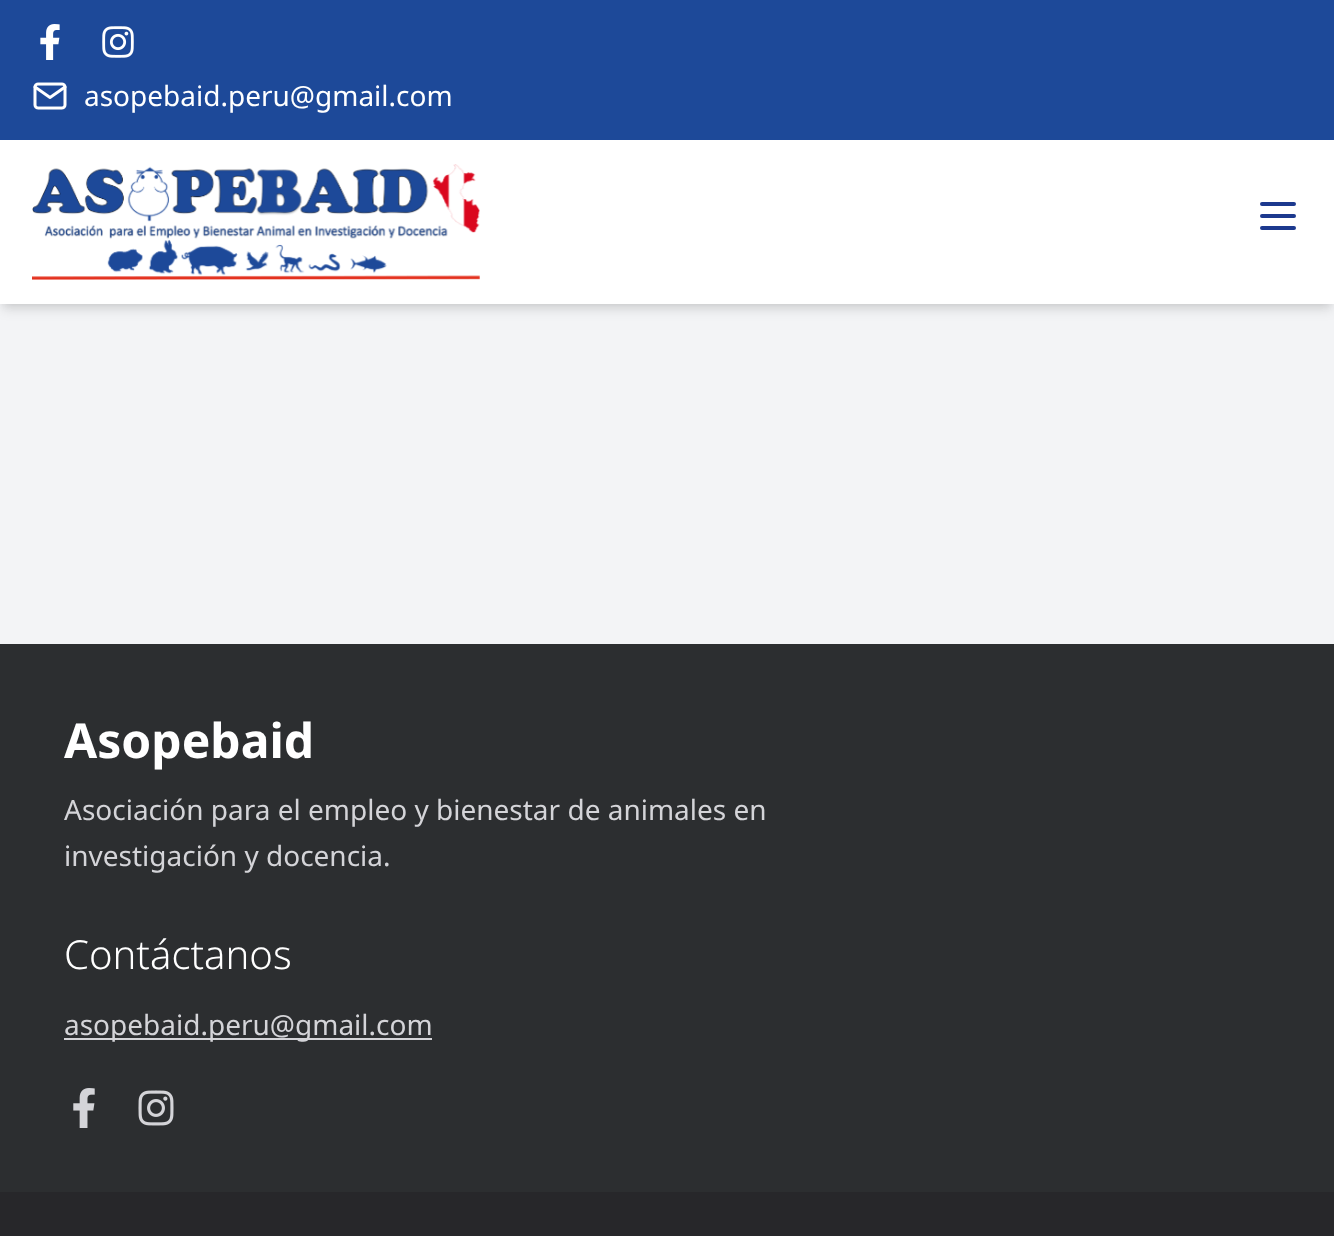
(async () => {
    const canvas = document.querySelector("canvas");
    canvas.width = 1334;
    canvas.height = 1236;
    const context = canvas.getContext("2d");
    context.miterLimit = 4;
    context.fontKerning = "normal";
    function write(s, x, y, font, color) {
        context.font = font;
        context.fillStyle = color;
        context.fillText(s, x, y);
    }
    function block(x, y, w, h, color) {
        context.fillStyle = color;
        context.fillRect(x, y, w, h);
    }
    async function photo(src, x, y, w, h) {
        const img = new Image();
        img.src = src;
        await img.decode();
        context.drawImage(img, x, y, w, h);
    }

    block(0, 0, 1334, 1236, "rgb(243, 244, 246)");
    context.fillStyle = "rgba(0, 0, 0, 0.1)";
    context.filter = "blur(4px)";
    context.beginPath();
    context.rect(4, 8, 1326, 296);
    context.fill();
    context.filter = "none";
    context.filter = "blur(6px)";
    context.beginPath();
    context.rect(2, 10, 1330, 300);
    context.fill();
    context.filter = "none";
    block(0, 140, 1334, 164, "rgb(255, 255, 255)");
    block(0, 0, 1334, 140, "rgb(29, 73, 153)");
    await photo("media/1.png", 40, 24, 20, 36);
    await photo("media/2.png", 102, 26, 32, 32);
    await photo("media/3.png", 33, 82, 34, 28);
    write("asopebaid.peru@gmail.com", 84, 106, "28px Noto Sans", "rgb(255, 255, 255)");
    await photo("media/4.png", 32, 164, 448, 116);
    context.beginPath();
    context.moveTo(1262, 204);
    context.lineTo(1294, 204);
    context.moveTo(1262, 216);
    context.lineTo(1294, 216);
    context.moveTo(1262, 228);
    context.lineTo(1294, 228);
    context.strokeStyle = "rgb(28, 57, 142)";
    context.lineWidth = 4;
    context.lineCap = "round";
    context.lineJoin = "round";
    context.stroke();
    block(0, 644, 1334, 548, "rgb(44, 46, 48)");
    write("Asopebaid", 64, 758, "bold 48px Noto Sans", "rgb(255, 255, 255)");
    write("Asociación para el empleo y bienestar de animales en", 64, 820, "28px Noto Sans", "rgb(212, 212, 216)");
    write("investigación y docencia.", 64, 866, "28px Noto Sans", "rgb(212, 212, 216)");
    write("Contáctanos", 64, 969, "300 40px Noto Sans", "rgb(255, 255, 255)");
    block(64, 1038, 368, 2, "rgb(212, 212, 216)");
    write("asopebaid.peru@gmail.com", 64, 1035, "28px Noto Sans", "rgb(212, 212, 216)");
    await photo("media/5.png", 73, 1088, 22, 40);
    await photo("media/6.png", 138, 1090, 36, 36);
    block(0, 1192, 1334, 44, "rgb(39, 39, 42)");
})();
